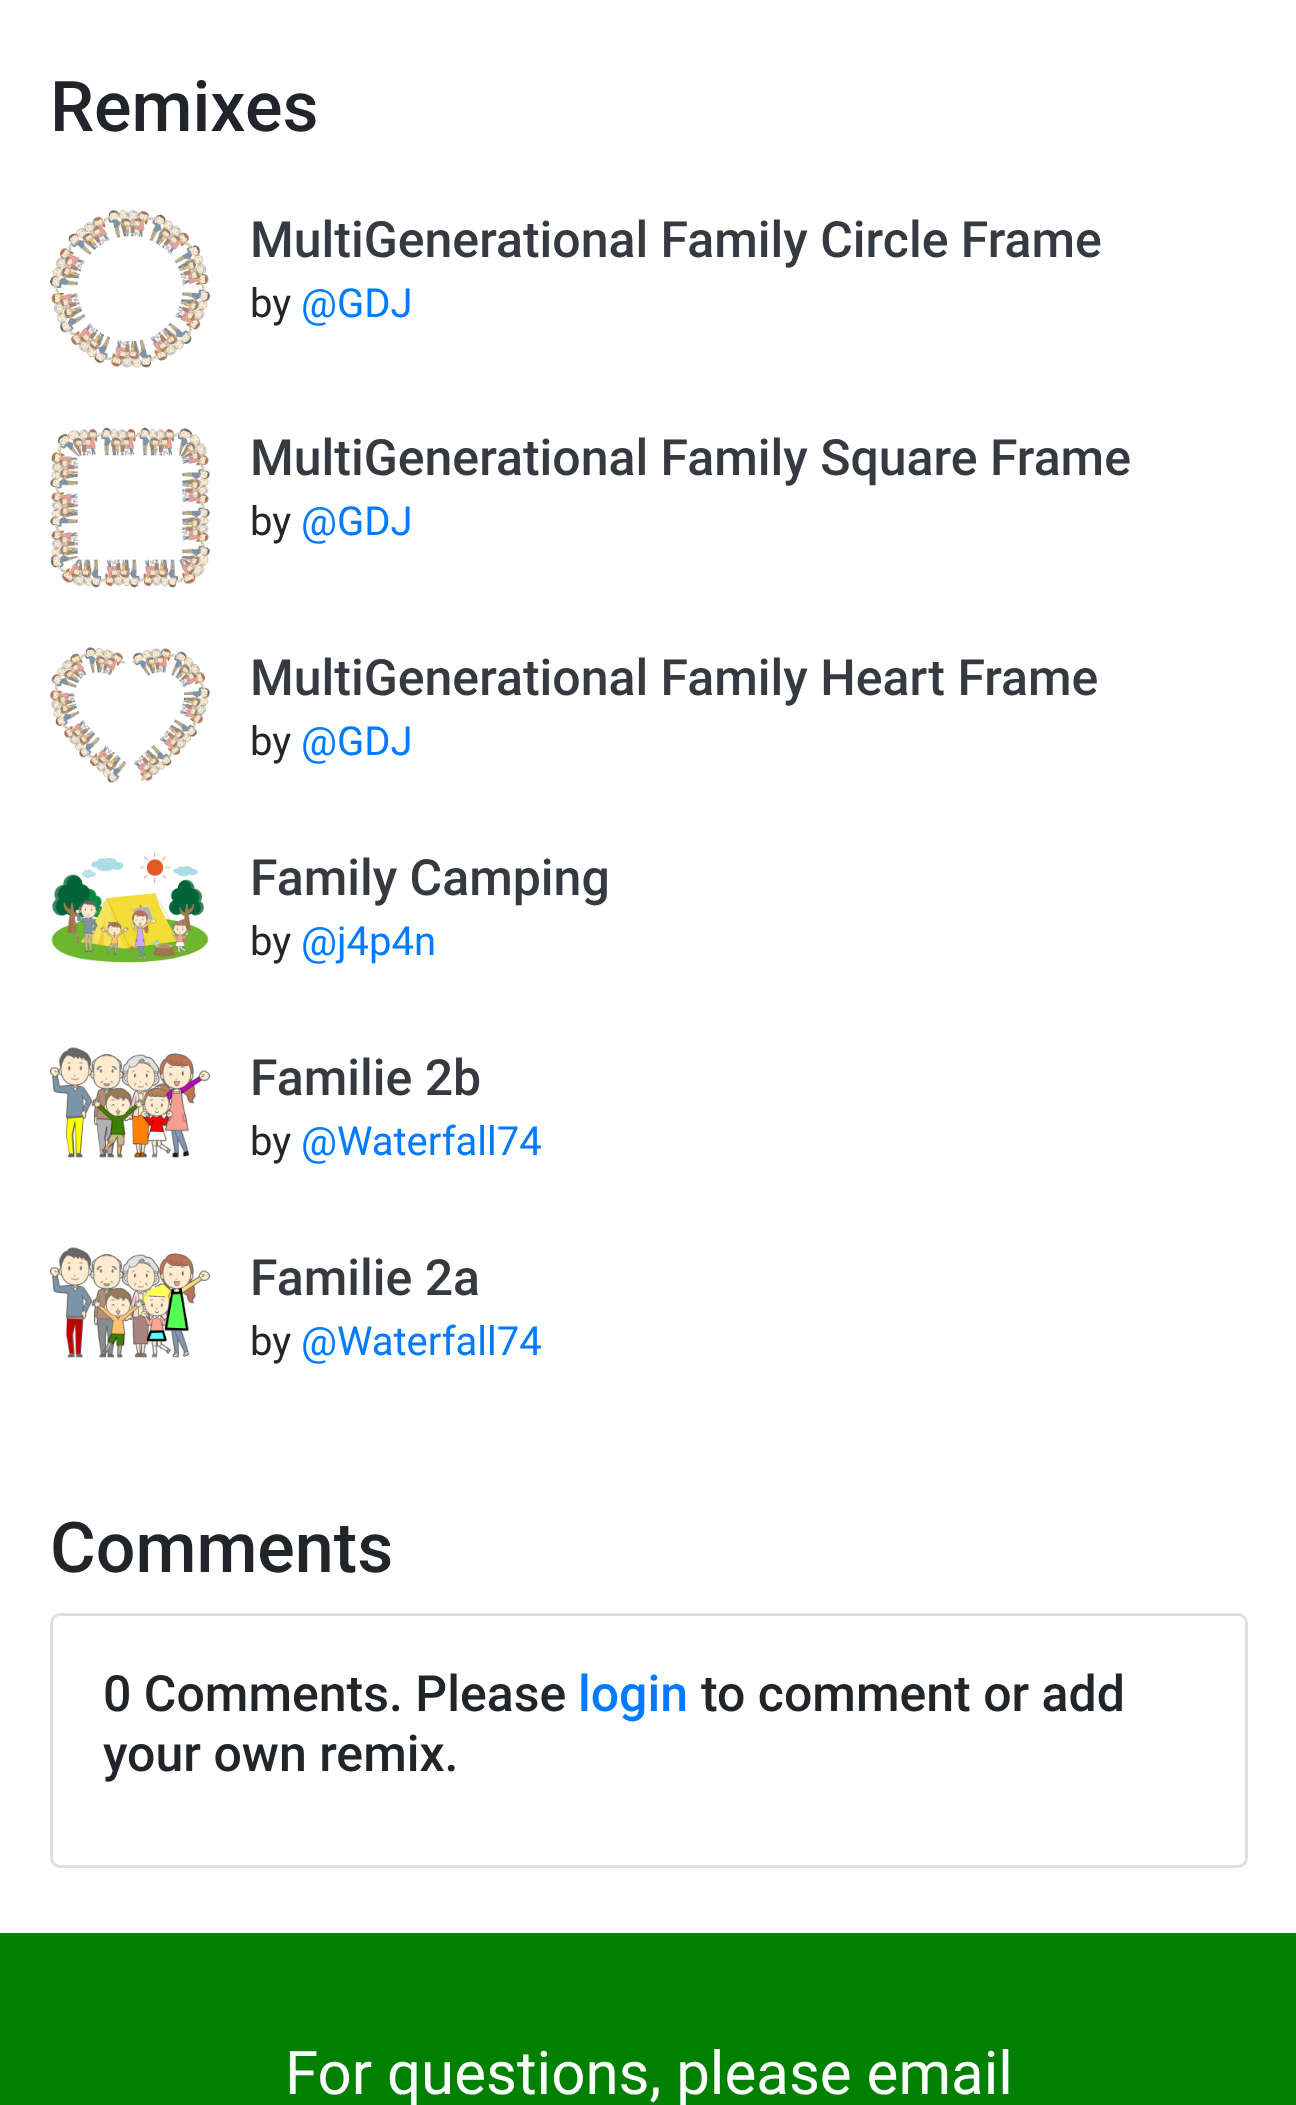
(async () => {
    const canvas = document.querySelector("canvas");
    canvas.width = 1296;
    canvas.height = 2105;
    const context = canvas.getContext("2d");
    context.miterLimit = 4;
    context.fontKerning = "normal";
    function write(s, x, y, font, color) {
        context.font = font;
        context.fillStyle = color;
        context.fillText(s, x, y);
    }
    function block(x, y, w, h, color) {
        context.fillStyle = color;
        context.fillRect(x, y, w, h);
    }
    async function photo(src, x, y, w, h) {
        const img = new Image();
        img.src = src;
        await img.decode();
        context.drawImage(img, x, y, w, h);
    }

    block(0, 0, 1296, 2105, "rgb(255, 255, 255)");
    write("Remixes", 50, 131, "500 70px Roboto", "rgb(33, 37, 41)");
    await photo("media/1.png", 50, 210, 160, 158);
    write("MultiGenerational Family Circle Frame", 250, 257, "500 50px Roboto", "rgb(52, 58, 64)");
    write("by", 250, 317, "40px Roboto", "rgb(33, 37, 41)");
    write("@GDJ", 301, 317, "40px Roboto", "rgb(0, 123, 255)");
    await photo("media/2.png", 50, 427, 160, 161);
    write("MultiGenerational Family Square Frame", 250, 475, "500 50px Roboto", "rgb(52, 58, 64)");
    write("by", 250, 535, "40px Roboto", "rgb(33, 37, 41)");
    write("@GDJ", 301, 535, "40px Roboto", "rgb(0, 123, 255)");
    await photo("media/3.png", 50, 647, 160, 136);
    write("MultiGenerational Family Heart Frame", 250, 695, "500 50px Roboto", "rgb(52, 58, 64)");
    write("by", 250, 755, "40px Roboto", "rgb(33, 37, 41)");
    write("@GDJ", 301, 755, "40px Roboto", "rgb(0, 123, 255)");
    await photo("media/4.png", 51, 852, 158, 111);
    write("Family Camping", 250, 895, "500 50px Roboto", "rgb(52, 58, 64)");
    write("by", 250, 955, "40px Roboto", "rgb(33, 37, 41)");
    write("@j4p4n", 301, 955, "40px Roboto", "rgb(0, 123, 255)");
    await photo("media/5.png", 50, 1047, 160, 111);
    write("Familie 2b", 250, 1095, "500 50px Roboto", "rgb(52, 58, 64)");
    write("by", 250, 1155, "40px Roboto", "rgb(33, 37, 41)");
    write("@Waterfall74", 301, 1155, "40px Roboto", "rgb(0, 123, 255)");
    await photo("media/6.png", 50, 1247, 160, 111);
    write("Familie 2a", 250, 1295, "500 50px Roboto", "rgb(52, 58, 64)");
    write("by", 250, 1355, "40px Roboto", "rgb(33, 37, 41)");
    write("@Waterfall74", 301, 1355, "40px Roboto", "rgb(0, 123, 255)");
    write("Comments", 50, 1572, "500 70px Roboto", "rgb(33, 37, 41)");
    context.beginPath();
    context.roundRect(51.5, 1614.5, 1195, 252, 8.5);
    context.strokeStyle = "rgb(223, 223, 223)";
    context.lineWidth = 3;
    context.stroke();
    write("0 Comments. Please", 103, 1711, "500 50px Roboto", "rgb(33, 37, 41)");
    write("login", 578, 1711, "500 50px Roboto", "rgb(0, 123, 255)");
    write("to comment or add", 701, 1711, "500 50px Roboto", "rgb(33, 37, 41)");
    write("your own remix.", 103, 1771, "500 50px Roboto", "rgb(33, 37, 41)");
    block(0, 1933, 1296, 172, "rgb(0, 128, 0)");
    write("For questions, please email", 285, 2094, "60px Roboto", "rgb(255, 255, 255)");
})();
